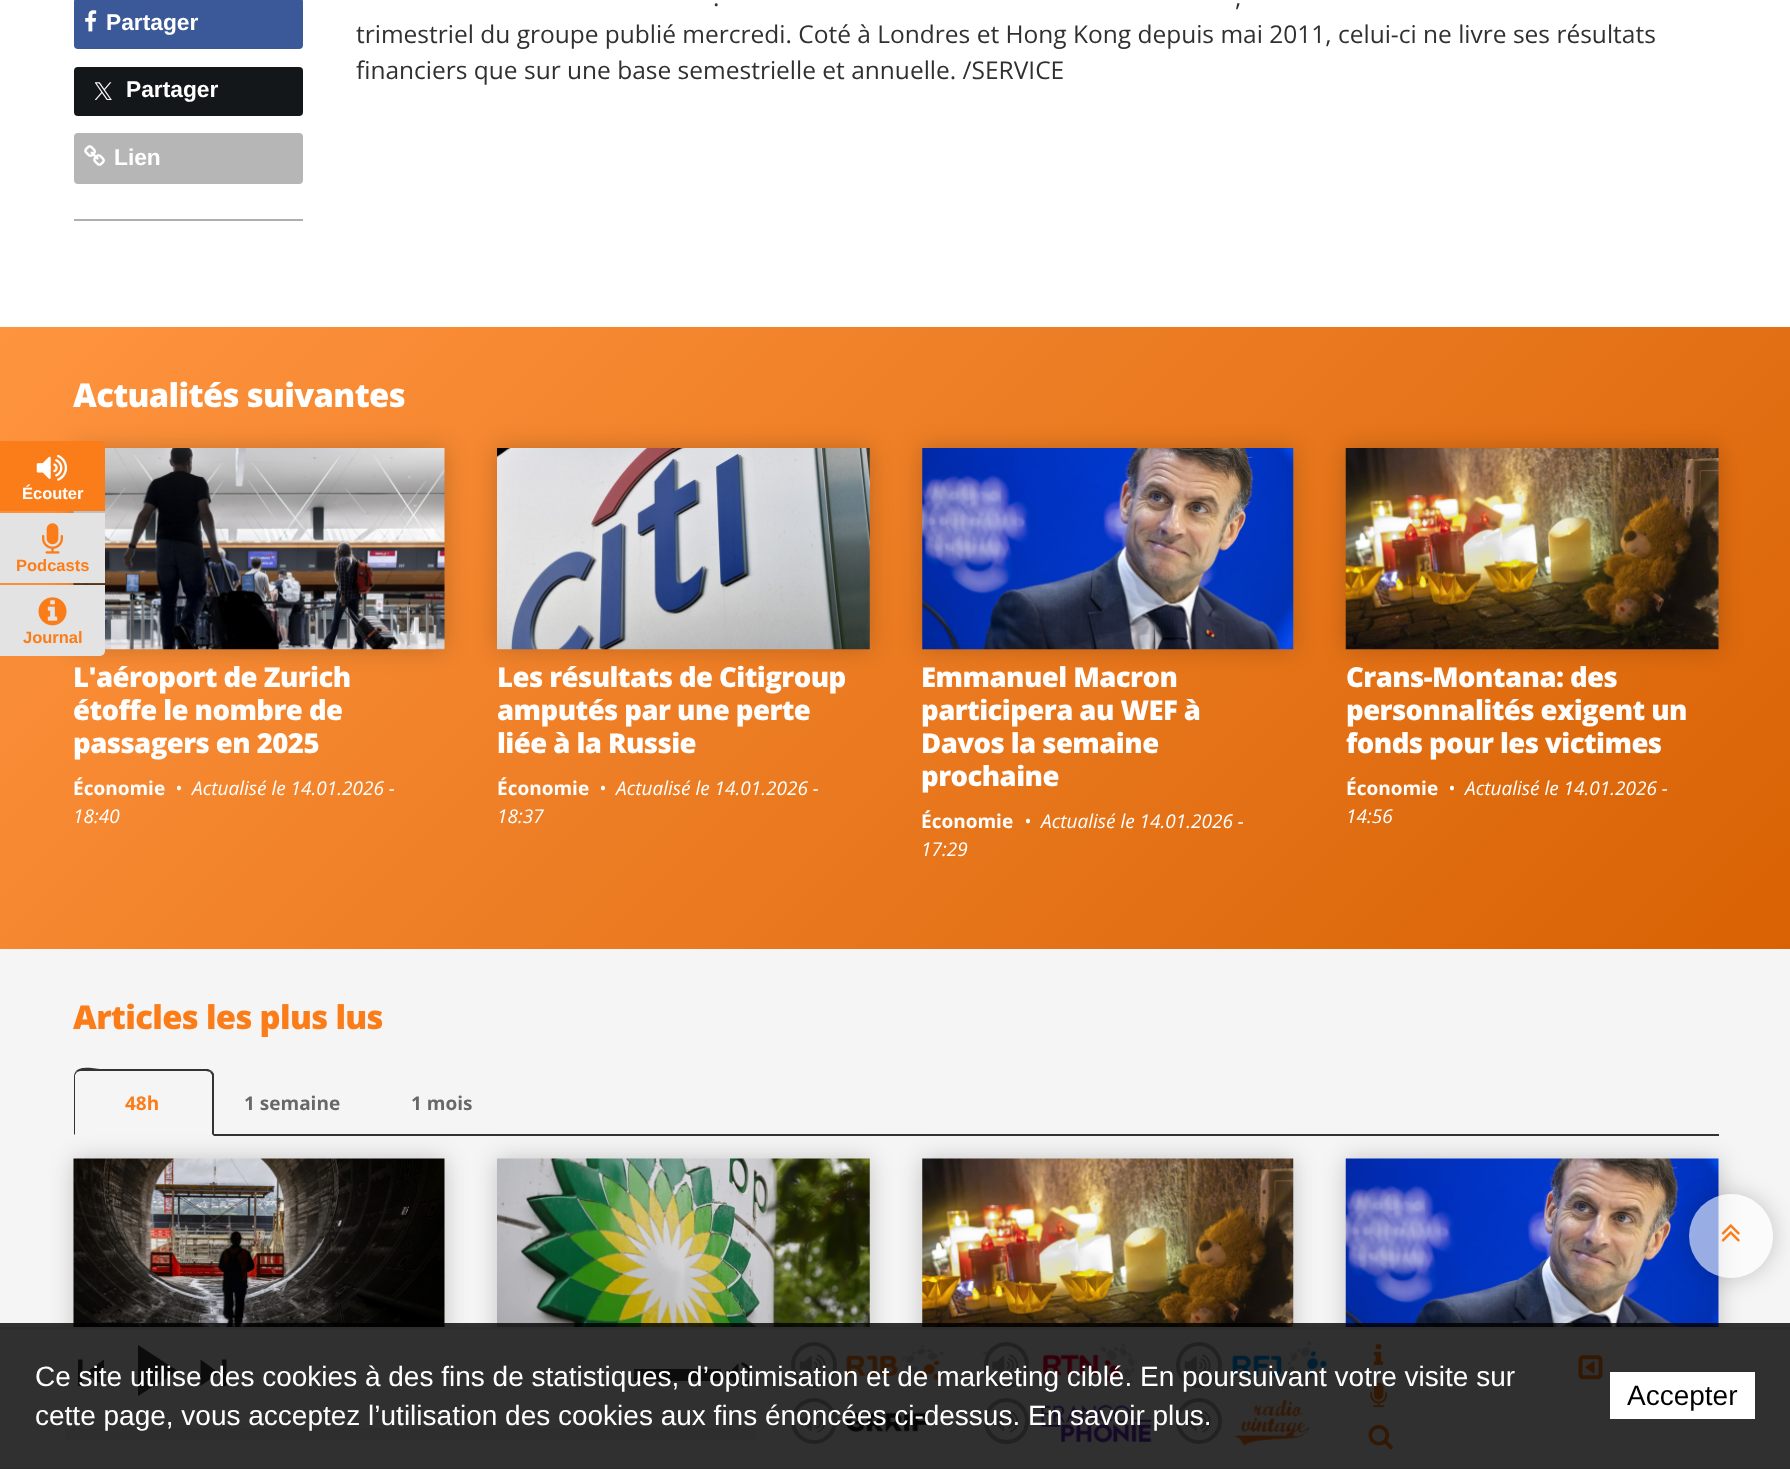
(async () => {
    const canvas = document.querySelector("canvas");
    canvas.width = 1790;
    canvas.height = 1469;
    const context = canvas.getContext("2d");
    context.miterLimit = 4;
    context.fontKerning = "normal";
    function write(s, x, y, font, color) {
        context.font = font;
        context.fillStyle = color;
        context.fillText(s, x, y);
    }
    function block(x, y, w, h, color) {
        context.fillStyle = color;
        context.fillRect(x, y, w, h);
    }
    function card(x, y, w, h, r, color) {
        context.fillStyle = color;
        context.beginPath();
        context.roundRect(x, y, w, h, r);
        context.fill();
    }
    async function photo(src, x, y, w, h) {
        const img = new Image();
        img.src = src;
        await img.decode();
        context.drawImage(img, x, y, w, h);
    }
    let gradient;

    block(0, 0, 1790, 1469, "rgb(255, 255, 255)");
    gradient = context.createLinearGradient(292, 35, 1498, 1241);
    gradient.addColorStop(0, "rgb(255, 148, 63)");
    gradient.addColorStop(1, "rgb(216, 98, 4)");
    context.fillStyle = gradient;
    context.fillRect(0, 327, 1790, 622);
    context.fillStyle = "rgba(0, 0, 0, 0.2)";
    context.filter = "blur(11.5px)";
    context.beginPath();
    context.rect(74, 448, 371, 201);
    context.fill();
    context.filter = "none";
    await photo("media/7.png", 73, 448, 372, 202);
    block(0, 441, 105, 70, "rgb(251, 125, 25)");
    await photo("media/1.png", 36, 454, 32, 27);
    write("Écouter", 22, 499, "bold 16.5px Liberation Sans", "rgb(255, 255, 255)");
    block(0, 513, 105, 70, "rgb(227, 227, 227)");
    await photo("media/2.png", 42, 523, 21, 31);
    write("Podcasts", 16, 571, "bold 16.5px Liberation Sans", "rgb(251, 125, 25)");
    context.fillStyle = "rgb(227, 227, 227)";
    context.beginPath();
    context.roundRect(0, 585, 105, 71, [0, 0, 5, 0]);
    context.fill();
    await photo("media/3.png", 38, 597, 29, 29);
    write("Journal", 23, 643, "bold 16.5px Liberation Sans", "rgb(251, 125, 25)");
    block(74, 219, 229, 2, "rgb(174, 175, 177)");
    card(74, -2, 229, 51, 4, "rgb(59, 89, 152)");
    await photo("media/4.png", 85, 10, 12, 22);
    write("Partager", 106, 30, "bold 22.75px Liberation Sans", "rgb(255, 255, 255)");
    card(74, 67, 229, 49, 4, "rgb(20, 23, 26)");
    await photo("media/5.png", 95, 82, 17, 18);
    write("Partager", 126, 97, "bold 22.75px Liberation Sans", "rgb(255, 255, 255)");
    card(74, 133, 229, 51, 4, "rgb(182, 182, 182)");
    await photo("media/6.png", 84, 145, 21, 21);
    write("Lien", 114, 165, "bold 22.75px Liberation Sans", "rgb(255, 255, 255)");
    write(".", 713, 6, "24.5px Open Sans", "rgb(48, 48, 48)");
    write(",", 1235, 6, "24.5px Open Sans", "rgb(48, 48, 48)");
    write("trimestriel du groupe publié mercredi. Coté à Londres et Hong Kong depuis mai 2011, celui-ci ne livre ses résultats", 356, 43, "24.5px Open Sans", "rgb(48, 48, 48)");
    write("financiers que sur une base semestrielle et annuelle. /SERVICE", 356, 79, "24.5px Open Sans", "rgb(48, 48, 48)");
    context.letterSpacing = "-0.65px";
    write("Actualités suivantes", 73, 407, "800 32.75px Open Sans", "rgb(255, 255, 255)");
    context.letterSpacing = "-0.55px";
    write("L'aéroport de Zurich", 73, 687, "800 27.5px Open Sans", "rgb(255, 255, 255)");
    write("étoffe le nombre de", 73, 720, "800 27.5px Open Sans", "rgb(255, 255, 255)");
    write("passagers en 2025", 73, 753, "800 27.5px Open Sans", "rgb(255, 255, 255)");
    context.letterSpacing = "0px";
    write("Économie", 73, 795, "bold 19px Open Sans", "rgb(255, 255, 255)");
    write("•", 175, 795, "italic 19px Open Sans", "rgb(255, 255, 255)");
    write("Actualisé le 14.01.2026 -", 192, 795, "italic 19px Open Sans", "rgb(255, 255, 255)");
    write("18:40", 73, 823, "italic 19px Open Sans", "rgb(255, 255, 255)");
    context.fillStyle = "rgba(0, 0, 0, 0.2)";
    context.filter = "blur(11.5px)";
    context.beginPath();
    context.rect(497, 448, 373, 201);
    context.fill();
    context.filter = "none";
    await photo("media/8.png", 497, 448, 373, 202);
    context.letterSpacing = "-0.55px";
    write("Les résultats de Citigroup", 497, 687, "800 27.5px Open Sans", "rgb(255, 255, 255)");
    write("amputés par une perte", 497, 720, "800 27.5px Open Sans", "rgb(255, 255, 255)");
    write("liée à la Russie", 497, 753, "800 27.5px Open Sans", "rgb(255, 255, 255)");
    context.letterSpacing = "0px";
    write("Économie", 497, 795, "bold 19px Open Sans", "rgb(255, 255, 255)");
    write("•", 599, 795, "italic 19px Open Sans", "rgb(255, 255, 255)");
    write("Actualisé le 14.01.2026 -", 616, 795, "italic 19px Open Sans", "rgb(255, 255, 255)");
    write("18:37", 497, 823, "italic 19px Open Sans", "rgb(255, 255, 255)");
    context.fillStyle = "rgba(0, 0, 0, 0.2)";
    context.filter = "blur(11.5px)";
    context.beginPath();
    context.rect(922, 448, 371, 201);
    context.fill();
    context.filter = "none";
    await photo("media/9.png", 922, 448, 372, 202);
    context.letterSpacing = "-0.55px";
    write("Emmanuel Macron", 921, 687, "800 27.5px Open Sans", "rgb(255, 255, 255)");
    write("participera au WEF à", 921, 720, "800 27.5px Open Sans", "rgb(255, 255, 255)");
    write("Davos la semaine", 921, 753, "800 27.5px Open Sans", "rgb(255, 255, 255)");
    write("prochaine", 921, 786, "800 27.5px Open Sans", "rgb(255, 255, 255)");
    context.letterSpacing = "0px";
    write("Économie", 921, 828, "bold 19px Open Sans", "rgb(255, 255, 255)");
    write("•", 1024, 828, "italic 19px Open Sans", "rgb(255, 255, 255)");
    write("Actualisé le 14.01.2026 -", 1041, 828, "italic 19px Open Sans", "rgb(255, 255, 255)");
    write("17:29", 921, 856, "italic 19px Open Sans", "rgb(255, 255, 255)");
    context.fillStyle = "rgba(0, 0, 0, 0.2)";
    context.filter = "blur(11.5px)";
    context.beginPath();
    context.rect(1346, 448, 373, 201);
    context.fill();
    context.filter = "none";
    await photo("media/10.png", 1345, 448, 374, 202);
    context.letterSpacing = "-0.55px";
    write("Crans-Montana: des", 1346, 687, "800 27.5px Open Sans", "rgb(255, 255, 255)");
    write("personnalités exigent un", 1346, 720, "800 27.5px Open Sans", "rgb(255, 255, 255)");
    write("fonds pour les victimes", 1346, 753, "800 27.5px Open Sans", "rgb(255, 255, 255)");
    context.letterSpacing = "0px";
    write("Économie", 1346, 795, "bold 19px Open Sans", "rgb(255, 255, 255)");
    write("•", 1448, 795, "italic 19px Open Sans", "rgb(255, 255, 255)");
    write("Actualisé le 14.01.2026 -", 1465, 795, "italic 19px Open Sans", "rgb(255, 255, 255)");
    write("14:56", 1346, 823, "italic 19px Open Sans", "rgb(255, 255, 255)");
    block(0, 949, 1790, 378, "rgb(245, 245, 245)");
    context.letterSpacing = "-0.65px";
    write("Articles les plus lus", 73, 1029, "800 32.75px Open Sans", "rgb(251, 125, 25)");
    block(214, 1134, 1505, 2, "rgb(51, 51, 51)");
    context.beginPath();
    context.moveTo(80, 1071);
    context.lineTo(77, 1072);
    context.lineTo(76, 1071);
    context.bezierCurveTo(81, 1065, 99, 1069, 100, 1069);
    context.lineTo(208, 1069);
    context.lineTo(212, 1071);
    context.lineTo(210, 1072);
    context.bezierCurveTo(209, 1072, 208, 1071, 206, 1071);
    context.closePath();
    context.fill();
    context.beginPath();
    context.moveTo(212, 1071);
    context.lineTo(214, 1074);
    context.lineTo(214, 1136);
    context.lineTo(212, 1134);
    context.lineTo(212, 1075);
    context.lineTo(210, 1072);
    context.closePath();
    context.fill();
    context.beginPath();
    context.moveTo(74, 1135);
    context.lineTo(74, 1076);
    context.bezierCurveTo(74, 1074, 75, 1073, 76, 1071);
    context.lineTo(77, 1072);
    context.lineTo(75, 1075);
    context.lineTo(75, 1134);
    context.closePath();
    context.fill();
    context.letterSpacing = "0px";
    write("48h", 125, 1110, "bold 19px Open Sans", "rgb(251, 125, 25)");
    write("1 semaine", 244, 1110, "bold 19px Open Sans", "rgb(104, 104, 104)");
    write("1 mois", 411, 1110, "bold 19px Open Sans", "rgb(104, 104, 104)");
    context.fillStyle = "rgba(0, 0, 0, 0.2)";
    context.filter = "blur(11.5px)";
    context.beginPath();
    context.rect(74, 1159, 371, 199);
    context.fill();
    context.filter = "none";
    await photo("media/11.png", 73, 1158, 372, 169);
    context.filter = "blur(11.5px)";
    context.beginPath();
    context.rect(497, 1159, 373, 199);
    context.fill();
    context.filter = "none";
    await photo("media/12.png", 497, 1158, 373, 169);
    context.filter = "blur(11.5px)";
    context.beginPath();
    context.rect(922, 1159, 371, 199);
    context.fill();
    context.filter = "none";
    await photo("media/13.png", 922, 1158, 372, 169);
    context.filter = "blur(11.5px)";
    context.beginPath();
    context.rect(1346, 1159, 373, 199);
    context.fill();
    context.filter = "none";
    await photo("media/14.png", 1345, 1158, 374, 169);
    context.save();
    context.beginPath();
    context.moveTo(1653, 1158);
    context.lineTo(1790, 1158);
    context.lineTo(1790, 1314);
    context.lineTo(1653, 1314);
    context.closePath();
    context.moveTo(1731, 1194);
    context.bezierCurveTo(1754, 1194, 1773, 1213, 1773, 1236);
    context.bezierCurveTo(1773, 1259, 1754, 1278, 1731, 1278);
    context.bezierCurveTo(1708, 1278, 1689, 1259, 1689, 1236);
    context.bezierCurveTo(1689, 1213, 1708, 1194, 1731, 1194);
    context.closePath();
    context.clip("evenodd");
    context.filter = "blur(11.5px)";
    context.beginPath();
    context.roundRect(1689, 1194, 84, 84, 42);
    context.fill();
    context.filter = "none";
    context.restore();
    context.fillStyle = "rgba(255, 255, 255, 0.6)";
    context.beginPath();
    context.arc(1731, 1236, 42, 0, Math.PI * 2);
    context.fill();
    await photo("media/15.png", 1721, 1224, 19, 18);
    block(0, 1329, 1790, 139, "rgb(240, 240, 240)");
    block(0, 1327, 1790, 2, "rgb(224, 224, 224)");
    block(0, 1468, 1790, 1, "rgb(224, 224, 224)");
    context.fillStyle = "rgb(60, 60, 60)";
    context.beginPath();
    context.moveTo(85.5, 1373);
    context.lineTo(104, 1359.5);
    context.lineTo(104, 1386);
    context.closePath();
    context.moveTo(78, 1359.5);
    context.lineTo(82.5, 1359.5);
    context.lineTo(82.5, 1386);
    context.lineTo(78, 1386);
    context.closePath();
    context.fill();
    context.beginPath();
    context.moveTo(138, 1345);
    context.lineTo(178, 1371);
    context.lineTo(138, 1396);
    context.closePath();
    context.fill();
    context.beginPath();
    context.moveTo(222, 1359.5);
    context.lineTo(226.5, 1359.5);
    context.lineTo(226.5, 1386);
    context.lineTo(222, 1386);
    context.closePath();
    context.moveTo(200.5, 1386);
    context.lineTo(200.5, 1359.5);
    context.lineTo(219, 1373);
    context.closePath();
    context.fill();
    block(634, 1369, 87, 12, "rgb(60, 60, 60)");
    await photo("media/16.png", 725, 1362, 27, 26);
    context.strokeStyle = "rgb(227, 227, 227)";
    context.lineWidth = 2;
    context.strokeRect(66, 1429, 689, 10);
    block(67, 1430, 687, 8, "rgb(227, 227, 227)");
    await photo("media/17.png", 846, 1345, 99, 37);
    context.beginPath();
    context.arc(814, 1365, 21, 0, Math.PI * 2);
    context.strokeStyle = "rgb(169, 169, 169)";
    context.lineWidth = 4;
    context.stroke();
    await photo("media/18.png", 799, 1354, 27, 23);
    await photo("media/19.png", 983, 1343, 154, 42);
    context.fillStyle = "rgb(240, 240, 240)";
    context.beginPath();
    context.roundRect(986, 1344, 41, 42, 20.5);
    context.fill();
    context.stroke();
    await photo("media/20.png", 992, 1354, 27, 23);
    await photo("media/21.png", 1232, 1341, 95, 49);
    context.beginPath();
    context.arc(1199, 1365, 21, 0, Math.PI * 2);
    context.stroke();
    await photo("media/18.png", 1184, 1354, 27, 23);
    await photo("media/22.png", 846, 1412, 82, 21);
    context.beginPath();
    context.arc(814, 1421, 21, 0, Math.PI * 2);
    context.stroke();
    await photo("media/18.png", 799, 1410, 27, 23);
    await photo("media/23.png", 983, 1404, 169, 39);
    context.beginPath();
    context.roundRect(986, 1400, 41, 42, 20.5);
    context.fill();
    context.stroke();
    await photo("media/20.png", 992, 1410, 27, 23);
    await photo("media/24.png", 1234, 1399, 76, 47);
    context.beginPath();
    context.arc(1199, 1421, 21, 0, Math.PI * 2);
    context.stroke();
    await photo("media/18.png", 1184, 1410, 27, 23);
    await photo("media/25.png", 1373, 1344, 11, 21);
    await photo("media/26.png", 1370, 1382, 18, 26);
    await photo("media/27.png", 1368, 1424, 25, 26);
    await photo("media/28.png", 1578, 1355, 25, 25);
    block(0, 1323, 1790, 146, "rgba(0, 0, 0, 0.8)");
    write("Ce site utilise des cookies à des fins de statistiques, d’optimisation et de marketing ciblé. En poursuivant votre visite sur", 35, 1386, "28px Liberation Sans", "rgb(255, 255, 255)");
    write("cette page, vous acceptez l’utilisation des cookies aux fins énoncées ci-dessus. En savoir plus.", 35, 1425, "28px Liberation Sans", "rgb(255, 255, 255)");
    block(1610, 1372, 145, 47, "rgb(255, 255, 255)");
    write("Accepter", 1627, 1405, "28px Liberation Sans", "rgb(0, 0, 0)");
})();
